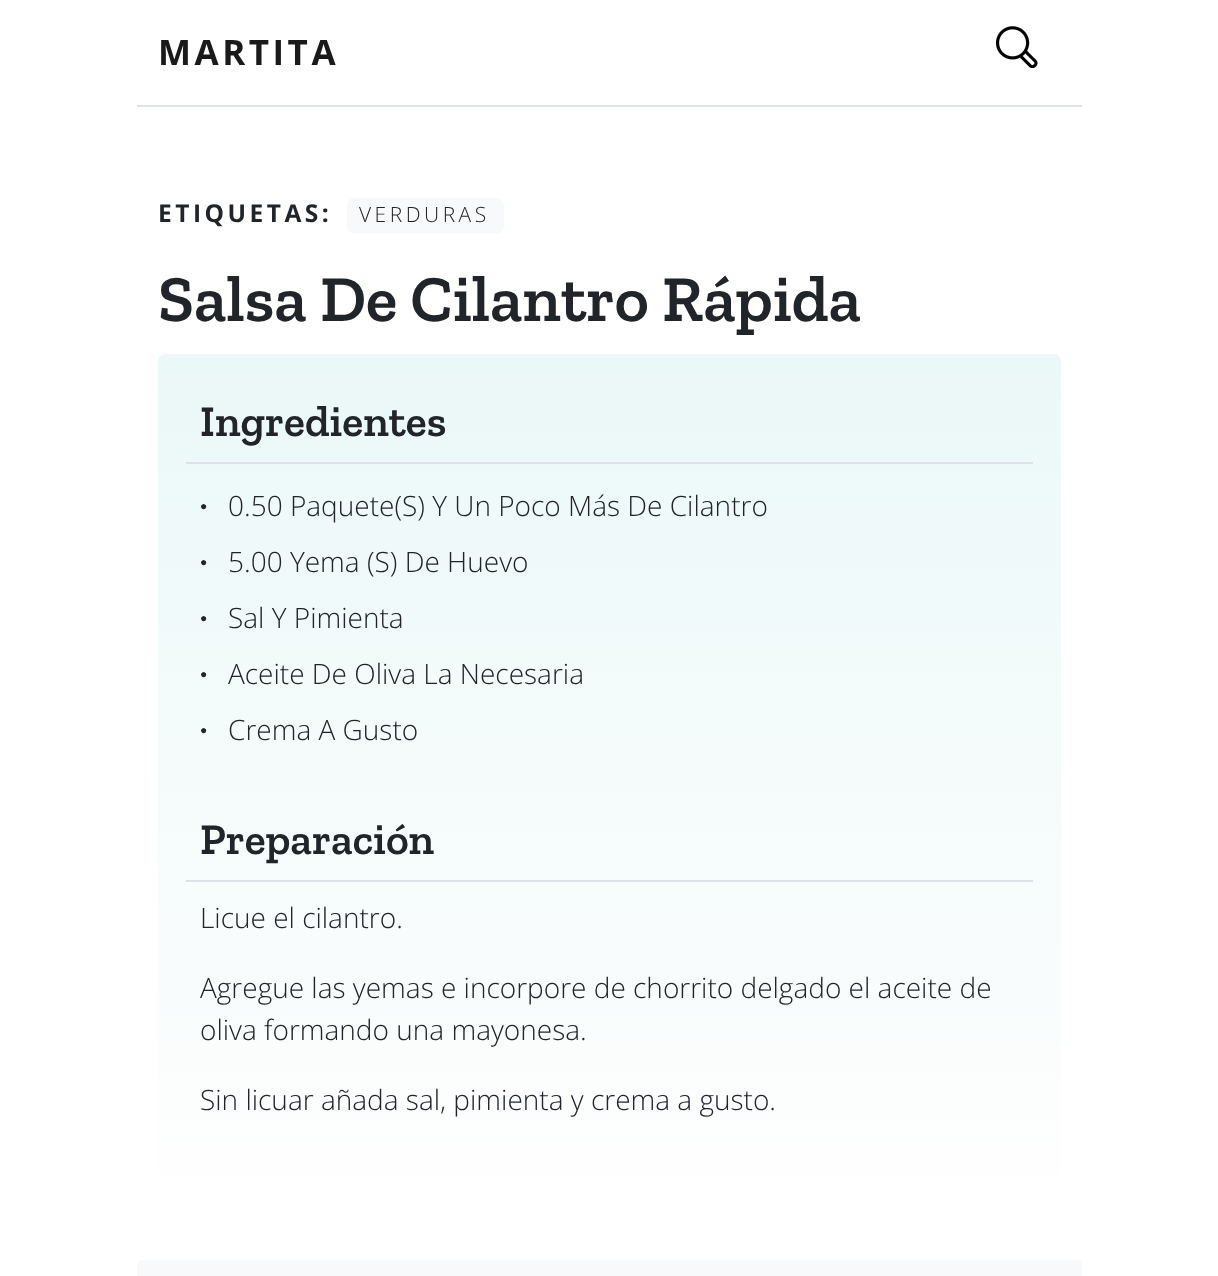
(async () => {
    const canvas = document.querySelector("canvas");
    canvas.width = 1218;
    canvas.height = 1276;
    const context = canvas.getContext("2d");
    context.miterLimit = 4;
    context.fontKerning = "normal";
    function write(s, x, y, font, color) {
        context.font = font;
        context.fillStyle = color;
        context.fillText(s, x, y);
    }
    function block(x, y, w, h, color) {
        context.fillStyle = color;
        context.fillRect(x, y, w, h);
    }
    function card(x, y, w, h, r, color) {
        context.fillStyle = color;
        context.beginPath();
        context.roundRect(x, y, w, h, r);
        context.fill();
    }
    async function photo(src, x, y, w, h) {
        const img = new Image();
        img.src = src;
        await img.decode();
        context.drawImage(img, x, y, w, h);
    }
    let gradient;

    block(0, 0, 1218, 1276, "rgb(255, 255, 255)");
    context.letterSpacing = "3.5px";
    write("MARTITA", 158, 65, "bold 35px Open Sans", "rgb(26, 26, 26)");
    await photo("media/1.png", 996, 26, 42, 42);
    block(137, 105, 945, 2, "rgb(222, 226, 230)");
    write("ETIQUETAS:", 158, 222, "bold 24.5px Open Sans", "rgb(33, 37, 41)");
    card(347, 198, 157, 35, 7, "rgb(248, 249, 250)");
    write("VERDURAS", 359, 222, "300 21px Open Sans", "rgb(33, 37, 41)");
    context.letterSpacing = "0px";
    write("Salsa De Cilantro Rápida", 158, 321, "600 65.5px Zilla Slab", "rgb(33, 37, 41)");
    gradient = context.createLinearGradient(609, 353, 609, 1176);
    gradient.addColorStop(0, "rgb(235, 248, 248)");
    gradient.addColorStop(1, "rgb(254, 254, 254)");
    context.fillStyle = gradient;
    context.beginPath();
    context.roundRect(158, 354, 903, 822, 7);
    context.fill();
    block(186, 462, 847, 2, "rgb(222, 226, 230)");
    write("Ingredientes", 200, 436, "600 43.75px Zilla Slab", "rgb(33, 37, 41)");
    write("●", 200, 510, "12px Liberation Sans", "rgb(33, 37, 41)");
    write("0.50 Paquete(S) Y Un Poco Más De Cilantro", 228, 516, "300 28px Open Sans", "rgb(33, 37, 41)");
    write("●", 200, 566, "12px Liberation Sans", "rgb(33, 37, 41)");
    write("5.00 Yema (S) De Huevo", 228, 572, "300 28px Open Sans", "rgb(33, 37, 41)");
    write("●", 200, 622, "12px Liberation Sans", "rgb(33, 37, 41)");
    write("Sal Y Pimienta", 228, 628, "300 28px Open Sans", "rgb(33, 37, 41)");
    write("●", 200, 678, "12px Liberation Sans", "rgb(33, 37, 41)");
    write("Aceite De Oliva La Necesaria", 228, 684, "300 28px Open Sans", "rgb(33, 37, 41)");
    write("●", 200, 734, "12px Liberation Sans", "rgb(33, 37, 41)");
    write("Crema A Gusto", 228, 740, "300 28px Open Sans", "rgb(33, 37, 41)");
    block(186, 880, 847, 2, "rgb(222, 226, 230)");
    write("Preparación", 200, 854, "600 43.75px Zilla Slab", "rgb(33, 37, 41)");
    write("Licue el cilantro.", 200, 928, "300 28px Open Sans", "rgb(33, 37, 41)");
    write("Agregue las yemas e incorpore de chorrito delgado el aceite de", 200, 998, "300 28px Open Sans", "rgb(33, 37, 41)");
    write("oliva formando una mayonesa.", 200, 1040, "300 28px Open Sans", "rgb(33, 37, 41)");
    write("Sin licuar añada sal, pimienta y crema a gusto.", 200, 1110, "300 28px Open Sans", "rgb(33, 37, 41)");
    card(137, 1260, 945, 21, 5, "rgb(248, 249, 250)");
})();
